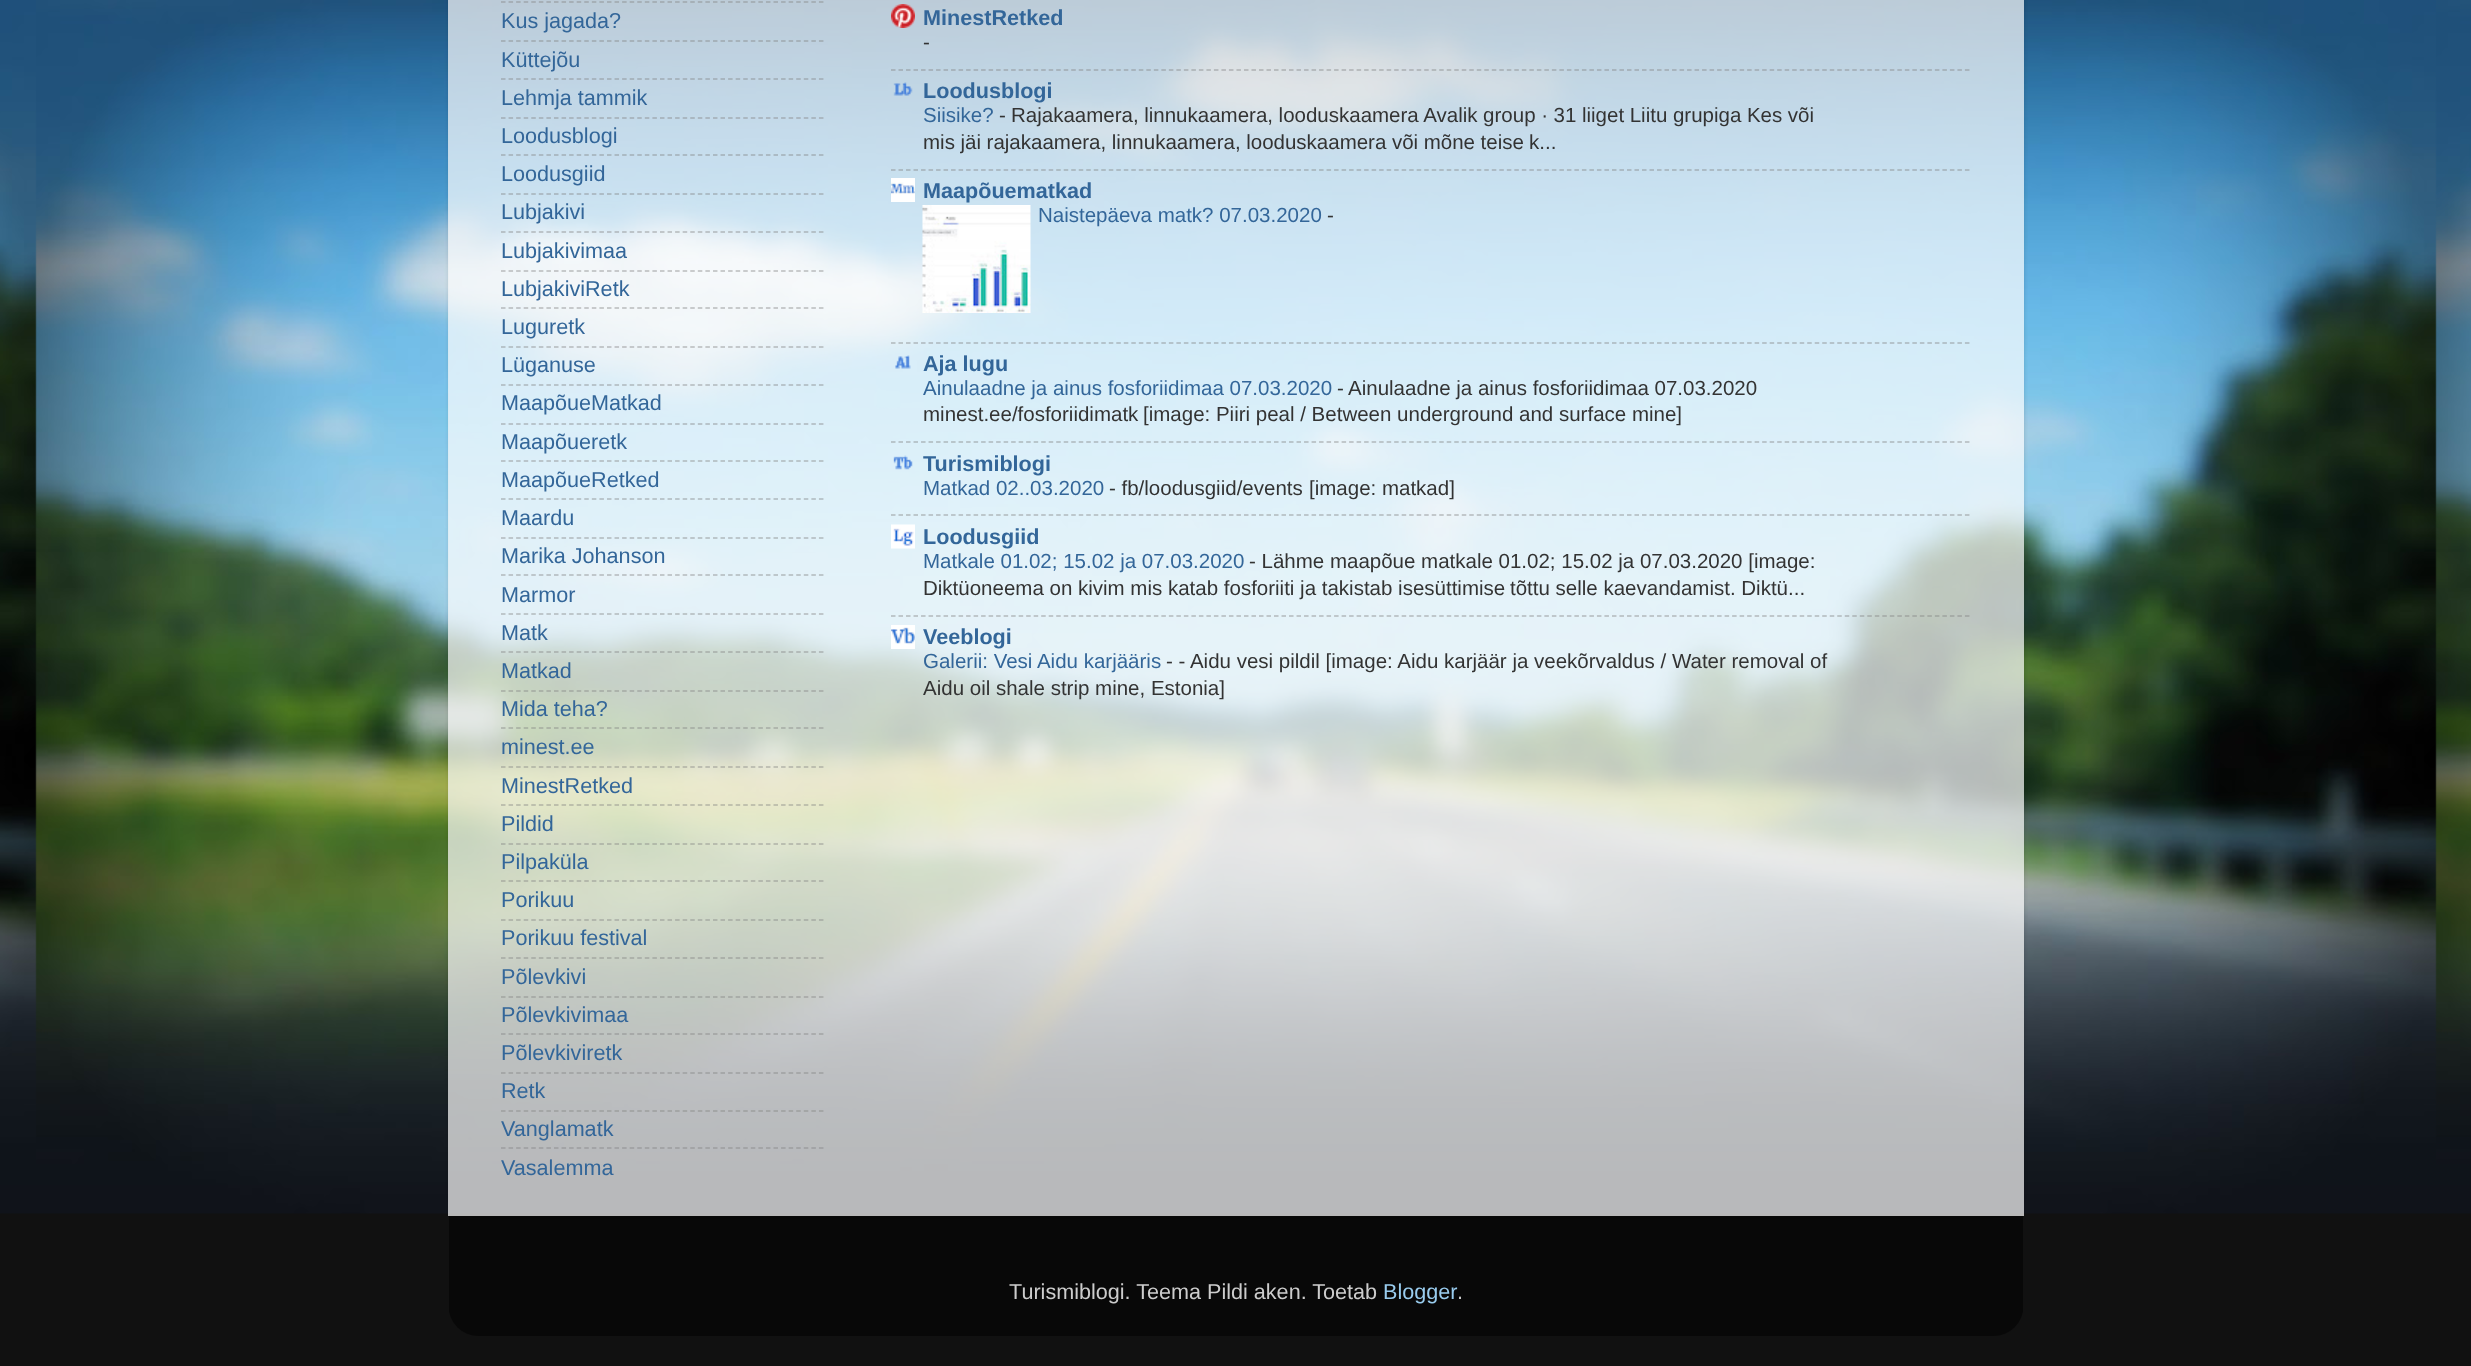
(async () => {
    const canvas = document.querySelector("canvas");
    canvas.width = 2471;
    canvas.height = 1366;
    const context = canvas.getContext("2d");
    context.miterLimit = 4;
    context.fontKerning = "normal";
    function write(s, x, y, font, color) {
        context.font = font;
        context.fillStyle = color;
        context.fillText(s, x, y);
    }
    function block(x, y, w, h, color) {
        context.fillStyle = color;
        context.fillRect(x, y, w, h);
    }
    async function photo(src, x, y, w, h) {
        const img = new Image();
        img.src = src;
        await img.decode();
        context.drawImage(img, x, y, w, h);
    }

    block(0, 0, 2471, 1366, "rgb(17, 17, 17)");
    await photo("media/1.png", 0, 0, 2471, 1214);
    context.save();
    context.beginPath();
    context.moveTo(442, 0);
    context.lineTo(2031, 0);
    context.lineTo(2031, 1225);
    context.lineTo(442, 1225);
    context.closePath();
    context.moveTo(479, -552);
    context.lineTo(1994, -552);
    context.bezierCurveTo(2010.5, -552, 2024, -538.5, 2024, -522);
    context.lineTo(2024, 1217);
    context.lineTo(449, 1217);
    context.lineTo(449, -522);
    context.bezierCurveTo(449, -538.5, 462.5, -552, 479, -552);
    context.closePath();
    context.clip("evenodd");
    context.fillStyle = "rgba(0, 0, 0, 0.15)";
    context.filter = "blur(2px)";
    context.beginPath();
    context.roundRect(449, -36, 1575, 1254, 30);
    context.fill();
    context.filter = "none";
    context.restore();
    block(448, 0, 1576, 1216, "rgba(255, 255, 255, 0.7)");
    context.beginPath();
    context.moveTo(501, 2);
    context.lineTo(823.5, 2);
    context.strokeStyle = "rgb(158, 166, 172)";
    context.lineWidth = 1.5;
    context.setLineDash([4.5, 3.07]);
    context.stroke();
    write("Kus jagada?", 501, 28, "21.6px Liberation Sans", "rgb(51, 102, 153)");
    context.beginPath();
    context.moveTo(501, 41);
    context.lineTo(823.5, 41);
    context.strokeStyle = "rgb(159, 168, 175)";
    context.stroke();
    write("Küttejõu", 501, 67, "21.6px Liberation Sans", "rgb(51, 102, 153)");
    context.beginPath();
    context.moveTo(501, 79);
    context.lineTo(823.5, 79);
    context.strokeStyle = "rgb(160, 170, 178)";
    context.stroke();
    write("Lehmja tammik", 501, 105, "21.6px Liberation Sans", "rgb(51, 102, 153)");
    context.beginPath();
    context.moveTo(501, 118);
    context.lineTo(823.5, 118);
    context.strokeStyle = "rgb(162, 172, 180)";
    context.stroke();
    write("Loodusblogi", 501, 143, "21.6px Liberation Sans", "rgb(51, 102, 153)");
    context.beginPath();
    context.moveTo(501, 155);
    context.lineTo(823.5, 155);
    context.strokeStyle = "rgb(163, 175, 183)";
    context.stroke();
    write("Loodusgiid", 501, 181, "21.6px Liberation Sans", "rgb(51, 102, 153)");
    context.beginPath();
    context.moveTo(501, 194);
    context.lineTo(823.5, 194);
    context.strokeStyle = "rgba(128, 128, 128, 0.5)";
    context.stroke();
    write("Lubjakivi", 501, 219, "21.6px Liberation Sans", "rgb(51, 102, 153)");
    context.beginPath();
    context.moveTo(501, 232);
    context.lineTo(823.5, 232);
    context.stroke();
    write("Lubjakivimaa", 501, 258, "21.6px Liberation Sans", "rgb(51, 102, 153)");
    context.beginPath();
    context.moveTo(501, 271);
    context.lineTo(823.5, 271);
    context.stroke();
    write("LubjakiviRetk", 501, 296, "21.6px Liberation Sans", "rgb(51, 102, 153)");
    context.beginPath();
    context.moveTo(501, 308);
    context.lineTo(823.5, 308);
    context.stroke();
    write("Luguretk", 501, 334, "21.6px Liberation Sans", "rgb(51, 102, 153)");
    context.beginPath();
    context.moveTo(501, 347);
    context.lineTo(823.5, 347);
    context.stroke();
    write("Lüganuse", 501, 372, "21.6px Liberation Sans", "rgb(51, 102, 153)");
    context.beginPath();
    context.moveTo(501, 385);
    context.lineTo(823.5, 385);
    context.stroke();
    write("MaapõueMatkad", 501, 410, "21.6px Liberation Sans", "rgb(51, 102, 153)");
    context.beginPath();
    context.moveTo(501, 424);
    context.lineTo(823.5, 424);
    context.strokeStyle = "rgb(173, 183, 188)";
    context.stroke();
    write("Maapõueretk", 501, 449, "21.6px Liberation Sans", "rgb(51, 102, 153)");
    context.beginPath();
    context.moveTo(501, 461);
    context.lineTo(823.5, 461);
    context.strokeStyle = "rgb(174, 184, 188)";
    context.stroke();
    write("MaapõueRetked", 501, 487, "21.6px Liberation Sans", "rgb(51, 102, 153)");
    context.beginPath();
    context.moveTo(501, 499);
    context.lineTo(823.5, 499);
    context.strokeStyle = "rgb(175, 184, 189)";
    context.stroke();
    write("Maardu", 501, 525, "21.6px Liberation Sans", "rgb(51, 102, 153)");
    context.beginPath();
    context.moveTo(501, 538);
    context.lineTo(823.5, 538);
    context.strokeStyle = "rgba(128, 128, 128, 0.5)";
    context.stroke();
    write("Marika Johanson", 501, 563, "21.6px Liberation Sans", "rgb(51, 102, 153)");
    context.beginPath();
    context.moveTo(501, 575);
    context.lineTo(823.5, 575);
    context.stroke();
    write("Marmor", 501, 602, "21.6px Liberation Sans", "rgb(51, 102, 153)");
    context.beginPath();
    context.moveTo(501, 614);
    context.lineTo(823.5, 614);
    context.strokeStyle = "rgb(178, 185, 188)";
    context.stroke();
    write("Matk", 501, 640, "21.6px Liberation Sans", "rgb(51, 102, 153)");
    context.beginPath();
    context.moveTo(501, 652);
    context.lineTo(823.5, 652);
    context.strokeStyle = "rgba(128, 128, 128, 0.5)";
    context.stroke();
    write("Matkad", 501, 678, "21.6px Liberation Sans", "rgb(51, 102, 153)");
    context.beginPath();
    context.moveTo(501, 691);
    context.lineTo(823.5, 691);
    context.stroke();
    write("Mida teha?", 501, 716, "21.6px Liberation Sans", "rgb(51, 102, 153)");
    context.beginPath();
    context.moveTo(501, 728);
    context.lineTo(823.5, 728);
    context.stroke();
    write("minest.ee", 501, 754, "21.6px Liberation Sans", "rgb(51, 102, 153)");
    context.beginPath();
    context.moveTo(501, 767);
    context.lineTo(823.5, 767);
    context.stroke();
    write("MinestRetked", 501, 793, "21.6px Liberation Sans", "rgb(51, 102, 153)");
    context.beginPath();
    context.moveTo(501, 805);
    context.lineTo(823.5, 805);
    context.stroke();
    write("Pildid", 501, 831, "21.6px Liberation Sans", "rgb(51, 102, 153)");
    context.beginPath();
    context.moveTo(501, 844);
    context.lineTo(823.5, 844);
    context.stroke();
    write("Pilpaküla", 501, 869, "21.6px Liberation Sans", "rgb(51, 102, 153)");
    context.beginPath();
    context.moveTo(501, 881);
    context.lineTo(823.5, 881);
    context.stroke();
    write("Porikuu", 501, 907, "21.6px Liberation Sans", "rgb(51, 102, 153)");
    context.beginPath();
    context.moveTo(501, 920);
    context.lineTo(823.5, 920);
    context.stroke();
    write("Porikuu festival", 501, 945, "21.6px Liberation Sans", "rgb(51, 102, 153)");
    context.beginPath();
    context.moveTo(501, 958);
    context.lineTo(823.5, 958);
    context.stroke();
    write("Põlevkivi", 501, 984, "21.6px Liberation Sans", "rgb(51, 102, 153)");
    context.beginPath();
    context.moveTo(501, 997);
    context.lineTo(823.5, 997);
    context.stroke();
    write("Põlevkivimaa", 501, 1022, "21.6px Liberation Sans", "rgb(51, 102, 153)");
    context.beginPath();
    context.moveTo(501, 1034);
    context.lineTo(823.5, 1034);
    context.stroke();
    write("Põlevkiviretk", 501, 1060, "21.6px Liberation Sans", "rgb(51, 102, 153)");
    context.beginPath();
    context.moveTo(501, 1073);
    context.lineTo(823.5, 1073);
    context.stroke();
    write("Retk", 501, 1098, "21.6px Liberation Sans", "rgb(51, 102, 153)");
    context.beginPath();
    context.moveTo(501, 1111);
    context.lineTo(823.5, 1111);
    context.strokeStyle = "rgb(157, 158, 159)";
    context.stroke();
    write("Vanglamatk", 501, 1136, "21.6px Liberation Sans", "rgb(51, 102, 153)");
    context.beginPath();
    context.moveTo(501, 1148);
    context.lineTo(823.5, 1148);
    context.strokeStyle = "rgb(156, 157, 158)";
    context.stroke();
    write("Vasalemma", 501, 1175, "21.6px Liberation Sans", "rgb(51, 102, 153)");
    await photo("media/2.png", 891, 4, 24, 24);
    write("MinestRetked", 923, 25, "bold 21.6px Liberation Sans", "rgb(51, 102, 153)");
    write("-", 923, 49, "20.5px Liberation Sans", "rgb(51, 51, 51)");
    context.beginPath();
    context.moveTo(891, 70);
    context.lineTo(1971, 70);
    context.strokeStyle = "rgba(128, 128, 128, 0.5)";
    context.setLineDash([4.5, 3.01]);
    context.stroke();
    await photo("media/3.png", 893, 82, 20, 14);
    write("Loodusblogi", 923, 98, "bold 21.6px Liberation Sans", "rgb(51, 102, 153)");
    write("Siisike?", 923, 122, "20.5px Liberation Sans", "rgb(51, 102, 153)");
    write("-", 999, 122, "20.5px Liberation Sans", "rgb(51, 51, 51)");
    context.wordSpacing = "-0.1px";
    write("Rajakaamera, linnukaamera, looduskaamera Avalik group · 31 liiget Liitu grupiga Kes või", 1011, 122, "20.5px Liberation Sans", "rgb(51, 51, 51)");
    write("mis jäi rajakaamera, linnukaamera, looduskaamera või mõne teise", 923, 149, "20.5px Liberation Sans", "rgb(51, 51, 51)");
    context.wordSpacing = "0px";
    write("k...", 1529, 149, "20.5px Liberation Sans", "rgb(51, 51, 51)");
    context.beginPath();
    context.moveTo(891, 170);
    context.lineTo(1971, 170);
    context.stroke();
    await photo("media/4.png", 891, 178, 24, 24);
    write("Maapõuematkad", 923, 198, "bold 21.6px Liberation Sans", "rgb(51, 102, 153)");
    await photo("media/5.png", 922, 205, 109, 108);
    write("Naistepäeva matk? 07.03.2020", 1038, 222, "20.5px Liberation Sans", "rgb(51, 102, 153)");
    write("-", 1327, 222, "20.5px Liberation Sans", "rgb(51, 51, 51)");
    context.beginPath();
    context.moveTo(891, 343);
    context.lineTo(1971, 343);
    context.stroke();
    await photo("media/6.png", 895, 355, 16, 14);
    write("Aja lugu", 923, 371, "bold 21.6px Liberation Sans", "rgb(51, 102, 153)");
    write("Ainulaadne ja ainus fosforiidimaa 07.03.2020", 923, 395, "20.5px Liberation Sans", "rgb(51, 102, 153)");
    write("-", 1337, 395, "20.5px Liberation Sans", "rgb(51, 51, 51)");
    write("Ainulaadne ja ainus fosforiidimaa 07.03.2020", 1348, 395, "20.5px Liberation Sans", "rgb(51, 51, 51)");
    write("minest.ee/fosforiidimatk", 923, 421, "20.5px Liberation Sans", "rgb(51, 51, 51)");
    write("[image: Piiri peal / Between underground and surface mine]", 1143, 421, "20.5px Liberation Sans", "rgb(51, 51, 51)");
    context.beginPath();
    context.moveTo(891, 442);
    context.lineTo(1971, 442);
    context.stroke();
    await photo("media/7.png", 893, 455, 20, 15);
    write("Turismiblogi", 923, 471, "bold 21.6px Liberation Sans", "rgb(51, 102, 153)");
    write("Matkad 02..03.2020", 923, 495, "20.5px Liberation Sans", "rgb(51, 102, 153)");
    write("- fb/loodusgiid/events", 1109, 495, "20.5px Liberation Sans", "rgb(51, 51, 51)");
    write("[image: matkad]", 1309, 495, "20.5px Liberation Sans", "rgb(51, 51, 51)");
    context.beginPath();
    context.moveTo(891, 515);
    context.lineTo(1971, 515);
    context.stroke();
    await photo("media/8.png", 891, 524, 24, 25);
    write("Loodusgiid", 923, 544, "bold 21.6px Liberation Sans", "rgb(51, 102, 153)");
    write("Matkale 01.02; 15.02 ja 07.03.2020", 923, 568, "20.5px Liberation Sans", "rgb(51, 102, 153)");
    write("- Lähme maapõue matkale 01.02; 15.02 ja 07.03.2020 [image:", 1249, 568, "20.5px Liberation Sans", "rgb(51, 51, 51)");
    write("Diktüoneema on kivim mis katab fosforiiti ja takistab isesüttimise", 923, 595, "20.5px Liberation Sans", "rgb(51, 51, 51)");
    write("tõttu selle kaevandamist. Diktü...", 1510, 595, "20.5px Liberation Sans", "rgb(51, 51, 51)");
    context.beginPath();
    context.moveTo(891, 616);
    context.lineTo(1971, 616);
    context.stroke();
    await photo("media/9.png", 891, 625, 24, 24);
    write("Veeblogi", 923, 644, "bold 21.6px Liberation Sans", "rgb(51, 102, 153)");
    write("Galerii: Vesi Aidu karjääris", 923, 668, "20.5px Liberation Sans", "rgb(51, 102, 153)");
    write("- - Aidu vesi pildil [image: Aidu karjäär ja veekõrvaldus / Water removal of", 1166, 668, "20.5px Liberation Sans", "rgb(51, 51, 51)");
    write("Aidu oil shale strip mine, Estonia]", 923, 695, "20.5px Liberation Sans", "rgb(51, 51, 51)");
    await photo("media/10.png", 449, 1216, 1574, 120);
    write("Turismiblogi. Teema Pildi aken. Toetab", 1009, 1299, "21.6px Liberation Sans", "rgb(204, 204, 204)");
    write("Blogger", 1383, 1299, "21.6px Liberation Sans", "rgb(153, 204, 238)");
    write(".", 1457, 1299, "21.6px Liberation Sans", "rgb(204, 204, 204)");
})();
